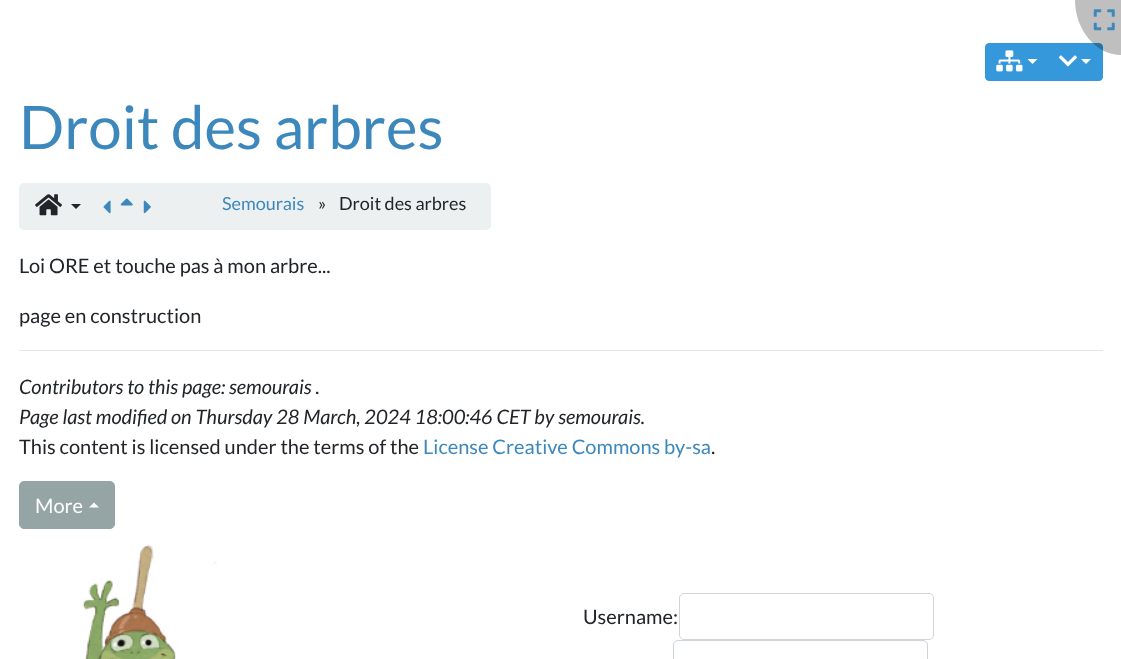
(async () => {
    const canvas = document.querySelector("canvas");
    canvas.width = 1121;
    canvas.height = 659;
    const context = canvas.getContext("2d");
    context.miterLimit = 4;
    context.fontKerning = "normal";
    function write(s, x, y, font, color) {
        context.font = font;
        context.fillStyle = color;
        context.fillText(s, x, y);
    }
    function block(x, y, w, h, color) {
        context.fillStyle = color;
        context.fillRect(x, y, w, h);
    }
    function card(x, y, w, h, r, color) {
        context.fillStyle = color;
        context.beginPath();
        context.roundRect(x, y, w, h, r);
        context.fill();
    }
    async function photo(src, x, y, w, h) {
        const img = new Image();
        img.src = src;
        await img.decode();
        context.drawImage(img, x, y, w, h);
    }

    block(0, 0, 1121, 659, "rgb(255, 255, 255)");
    context.fillStyle = "rgb(52, 152, 219)";
    context.beginPath();
    context.roundRect(985.5, 43.5, 63, 37, [3.5, 0, 0, 3.5]);
    context.fill();
    context.strokeStyle = "rgb(52, 152, 219)";
    context.stroke();
    context.beginPath();
    context.roundRect(1048.5, 43.5, 54, 37, [0, 3.5, 3.5, 0]);
    context.fill();
    context.stroke();
    context.fillStyle = "rgba(0, 0, 0, 0.25)";
    context.beginPath();
    context.moveTo(1075, 0);
    context.lineTo(1121, 0);
    context.lineTo(1121, 55);
    context.bezierCurveTo(1096, 55, 1075, 30, 1075, 0);
    context.closePath();
    context.fill();
    await photo("media/1.png", 1093, 9, 22, 22);
    await photo("media/2.png", 996, 50, 27, 22);
    context.fillStyle = "rgb(255, 255, 255)";
    context.beginPath();
    context.moveTo(1027.5, 59);
    context.lineTo(1037.5, 59);
    context.lineTo(1032.5, 64);
    context.closePath();
    context.fill();
    await photo("media/3.png", 1059, 55, 18, 12);
    context.beginPath();
    context.moveTo(1081, 59);
    context.lineTo(1091, 59);
    context.lineTo(1086, 64);
    context.closePath();
    context.fill();
    write("Droit des arbres", 19, 149, "60px Lato", "rgb(60, 136, 188)");
    card(19, 183, 472, 47, 5, "rgb(236, 240, 241)");
    await photo("media/4.png", 35, 194, 27, 22);
    context.fillStyle = "rgb(33, 37, 41)";
    context.beginPath();
    context.moveTo(71, 204);
    context.lineTo(81, 204);
    context.lineTo(76, 209);
    context.closePath();
    context.fill();
    await photo("media/5.png", 103, 200, 8, 14);
    await photo("media/6.png", 120, 198, 13, 8);
    await photo("media/7.png", 143, 200, 8, 14);
    write("Semourais", 222, 210, "18px Lato", "rgb(60, 136, 188)");
    write("»", 318, 210, "18px Lato", "rgb(33, 37, 41)");
    write("Droit des arbres", 339, 210, "18px Lato", "rgb(33, 37, 41)");
    write("Loi ORE et touche pas à mon arbre...", 19, 273, "20px Lato", "rgb(33, 37, 41)");
    write("page en construction", 19, 323, "20px Lato", "rgb(33, 37, 41)");
    block(19, 350, 1084, 1, "rgb(230, 230, 230)");
    write("Contributors to this page: semourais .", 19, 394, "italic 20px Lato", "rgb(33, 37, 41)");
    write("Page last modified on Thursday 28 March, 2024 18:00:46 CET by semourais.", 19, 424, "italic 20px Lato", "rgb(33, 37, 41)");
    write("This content is licensed under the terms of the", 19, 454, "20px Lato", "rgb(33, 37, 41)");
    write("License Creative Commons by-sa", 423, 454, "20px Lato", "rgb(60, 136, 188)");
    write(".", 711, 454, "20px Lato", "rgb(33, 37, 41)");
    context.fillStyle = "rgb(149, 165, 166)";
    context.beginPath();
    context.roundRect(19.5, 481.5, 95, 47, 4.5);
    context.fill();
    context.strokeStyle = "rgb(149, 165, 166)";
    context.stroke();
    write("More", 35, 513, "20px Lato", "rgb(255, 255, 255)");
    context.beginPath();
    context.moveTo(99, 507.5);
    context.lineTo(89, 507.5);
    context.lineTo(94, 502.5);
    context.closePath();
    context.fill();
    await photo("media/8.png", 83, 545, 134, 114);
    write("Username:", 583, 624, "20px Lato", "rgb(33, 37, 41)");
    context.beginPath();
    context.roundRect(679.5, 593.5, 254, 46, 4.5);
    context.strokeStyle = "rgb(206, 212, 218)";
    context.stroke();
    context.beginPath();
    context.roundRect(673.5, 640.5, 254, 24, 4.5);
    context.stroke();
})();
